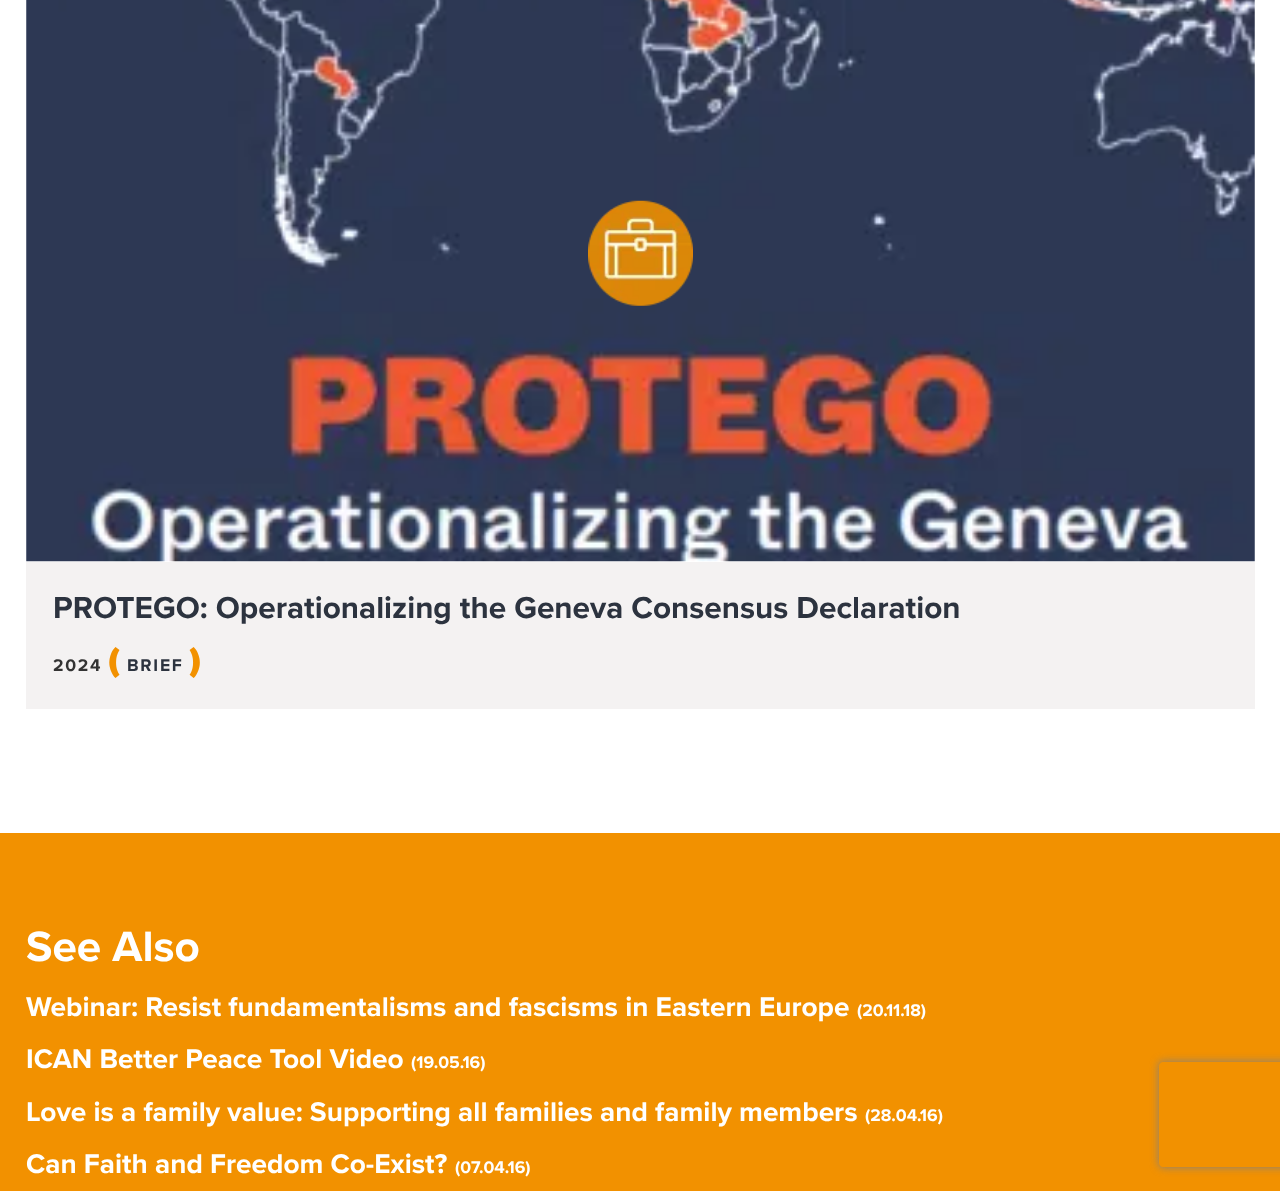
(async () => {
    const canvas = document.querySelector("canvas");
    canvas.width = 1280;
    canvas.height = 1191;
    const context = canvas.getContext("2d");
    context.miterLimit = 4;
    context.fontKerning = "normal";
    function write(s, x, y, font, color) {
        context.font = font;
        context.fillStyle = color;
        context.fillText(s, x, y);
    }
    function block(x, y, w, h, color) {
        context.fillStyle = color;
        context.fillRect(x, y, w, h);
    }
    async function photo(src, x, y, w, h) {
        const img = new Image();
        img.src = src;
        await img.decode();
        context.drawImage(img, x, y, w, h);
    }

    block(0, 0, 1280, 1191, "rgb(255, 255, 255)");
    await photo("media/1.png", 26, 0, 1229, 562);
    await photo("media/2.png", 588, 200, 105, 106);
    block(26, 562, 1229, 147, "rgb(244, 242, 242)");
    write("PROTEGO: Operationalizing the Geneva Consensus Declaration", 53, 618, "bold 31.5px Proxima Nova", "rgb(44, 51, 63)");
    context.letterSpacing = "1.75px";
    write("2024", 53, 671, "bold 17.5px Proxima Nova", "rgb(51, 51, 51)");
    write("(", 108, 671, "900 35px Proxima Nova", "rgb(242, 145, 0)");
    write("BRIEF", 127, 671, "bold 17.5px Proxima Nova", "rgb(44, 51, 63)");
    write(")", 189, 671, "900 35px Proxima Nova", "rgb(242, 145, 0)");
    block(0, 833, 1280, 358, "rgb(242, 145, 0)");
    context.letterSpacing = "0px";
    write("See Also", 26, 961, "bold 44px Proxima Nova", "rgb(255, 255, 255)");
    write("Webinar: Resist fundamentalisms and fascisms in Eastern Europe", 26, 1016, "bold 28px Proxima Nova", "rgb(255, 255, 255)");
    write("(20.11.18)", 857, 1016, "bold 17.5px Proxima Nova", "rgb(255, 255, 255)");
    write("ICAN Better Peace Tool Video", 26, 1068, "bold 28px Proxima Nova", "rgb(255, 255, 255)");
    write("(19.05.16)", 411, 1068, "bold 17.5px Proxima Nova", "rgb(255, 255, 255)");
    write("Love is a family value: Supporting all families and family members", 26, 1121, "bold 28px Proxima Nova", "rgb(255, 255, 255)");
    write("(28.04.16)", 865, 1121, "bold 17.5px Proxima Nova", "rgb(255, 255, 255)");
    write("Can Faith and Freedom Co-Exist?", 26, 1173, "bold 28px Proxima Nova", "rgb(255, 255, 255)");
    write("(07.04.16)", 455, 1173, "bold 17.5px Proxima Nova", "rgb(255, 255, 255)");
    context.save();
    context.beginPath();
    context.moveTo(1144, 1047);
    context.lineTo(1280, 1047);
    context.lineTo(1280, 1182);
    context.lineTo(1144, 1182);
    context.closePath();
    context.moveTo(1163, 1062);
    context.lineTo(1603, 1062);
    context.bezierCurveTo(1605, 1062, 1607, 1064, 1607, 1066);
    context.lineTo(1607, 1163);
    context.bezierCurveTo(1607, 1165, 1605, 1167, 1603, 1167);
    context.lineTo(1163, 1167);
    context.bezierCurveTo(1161, 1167, 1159, 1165, 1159, 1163);
    context.lineTo(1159, 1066);
    context.bezierCurveTo(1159, 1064, 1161, 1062, 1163, 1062);
    context.closePath();
    context.clip("evenodd");
    context.fillStyle = "rgb(128, 128, 128)";
    context.filter = "blur(4.5px)";
    context.beginPath();
    context.roundRect(1159, 1062, 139, 105, 4);
    context.fill();
    context.filter = "none";
    context.restore();
})();
